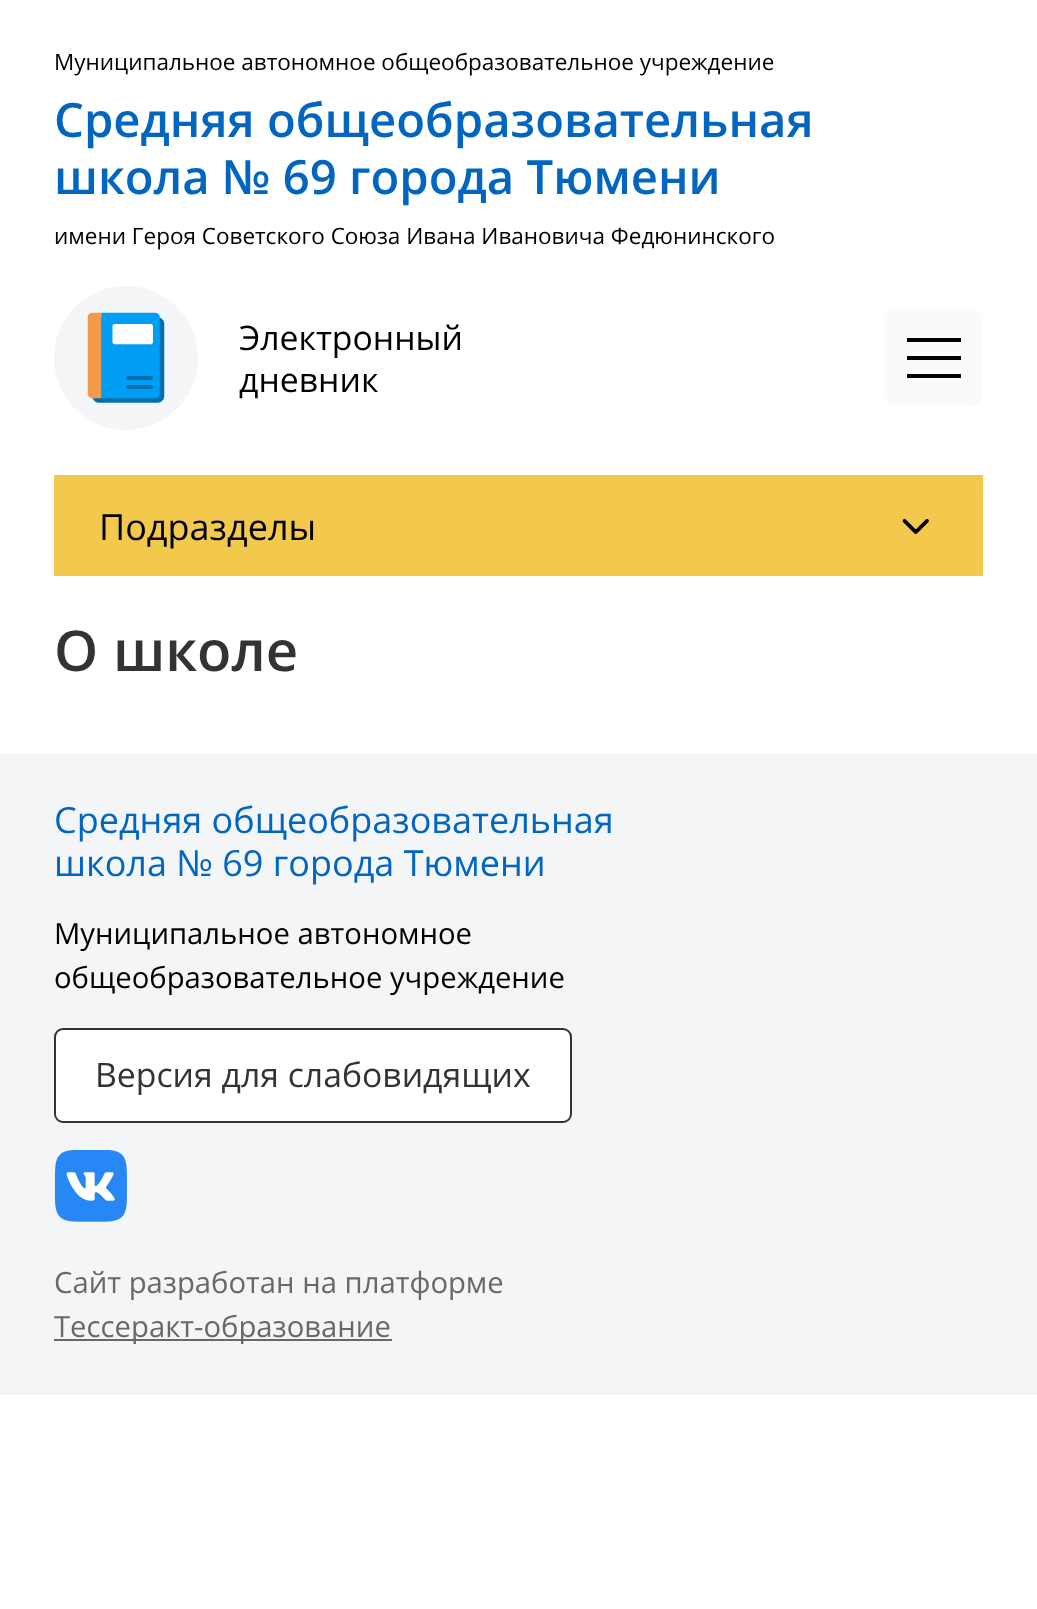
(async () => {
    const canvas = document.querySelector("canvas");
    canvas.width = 1037;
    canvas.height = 1609;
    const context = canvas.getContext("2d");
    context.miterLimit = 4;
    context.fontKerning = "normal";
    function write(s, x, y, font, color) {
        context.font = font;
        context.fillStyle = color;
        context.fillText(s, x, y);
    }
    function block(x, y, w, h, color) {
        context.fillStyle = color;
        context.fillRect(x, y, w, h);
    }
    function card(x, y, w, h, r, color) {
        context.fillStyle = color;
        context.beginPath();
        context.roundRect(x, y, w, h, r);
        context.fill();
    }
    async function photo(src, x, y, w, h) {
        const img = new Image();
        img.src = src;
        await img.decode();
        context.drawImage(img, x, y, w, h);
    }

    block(0, 0, 1037, 1609, "rgb(255, 255, 255)");
    write("Муниципальное автономное общеобразовательное учреждение", 54, 70, "22.5px Open Sans", "rgb(0, 0, 0)");
    write("Средняя общеобразовательная", 54, 137, "600 47.25px Open Sans", "rgb(2, 101, 192)");
    write("школа № 69 города Тюмени", 54, 194, "600 47.25px Open Sans", "rgb(2, 101, 192)");
    write("имени Героя Советского Союза Ивана Ивановича Федюнинского", 54, 244, "22.5px Open Sans", "rgb(0, 0, 0)");
    await photo("media/1.png", 54, 286, 144, 144);
    write("Электронный", 239, 350, "33.75px Open Sans", "rgb(0, 0, 0)");
    write("дневник", 239, 392, "33.75px Open Sans", "rgb(0, 0, 0)");
    card(884, 308, 99, 99, 14, "rgb(249, 250, 251)");
    block(907, 338, 54, 4, "rgb(0, 0, 0)");
    block(907, 356, 54, 4, "rgb(0, 0, 0)");
    block(907, 374, 54, 4, "rgb(0, 0, 0)");
    block(54, 475, 929, 101, "rgb(242, 201, 76)");
    write("Подразделы", 99, 540, "36px Open Sans", "rgb(0, 0, 0)");
    await photo("media/2.png", 902, 519, 27, 15);
    write("О школе", 54, 671, "600 56.25px Open Sans", "rgb(51, 51, 51)");
    block(0, 754, 1037, 641, "rgb(243, 245, 247)");
    write("Средняя общеобразовательная", 54, 833, "36px Open Sans", "rgb(2, 101, 192)");
    write("школа № 69 города Тюмени", 54, 876, "36px Open Sans", "rgb(2, 101, 192)");
    write("Муниципальное автономное", 54, 944, "29.25px Open Sans", "rgb(0, 0, 0)");
    write("общеобразовательное учреждение", 54, 988, "29.25px Open Sans", "rgb(0, 0, 0)");
    context.fillStyle = "rgb(255, 255, 255)";
    context.beginPath();
    context.roundRect(55, 1029, 516, 93, 8);
    context.fill();
    context.strokeStyle = "rgb(51, 51, 51)";
    context.lineWidth = 2;
    context.stroke();
    write("Версия для слабовидящих", 95, 1087, "33.75px Open Sans", "rgb(51, 51, 51)");
    await photo("media/3.png", 54, 1150, 73, 72);
    write("Сайт разработан на платформе", 54, 1293, "29.25px Open Sans", "rgb(104, 104, 104)");
    block(54, 1339, 338, 2, "rgb(104, 104, 104)");
    write("Тессеракт-образование", 54, 1337, "29.25px Open Sans", "rgb(104, 104, 104)");
})();
